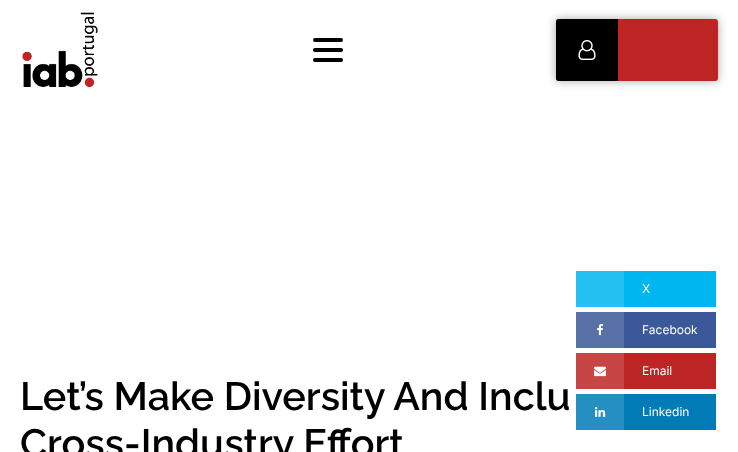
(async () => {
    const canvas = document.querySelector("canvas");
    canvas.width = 738;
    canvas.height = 452;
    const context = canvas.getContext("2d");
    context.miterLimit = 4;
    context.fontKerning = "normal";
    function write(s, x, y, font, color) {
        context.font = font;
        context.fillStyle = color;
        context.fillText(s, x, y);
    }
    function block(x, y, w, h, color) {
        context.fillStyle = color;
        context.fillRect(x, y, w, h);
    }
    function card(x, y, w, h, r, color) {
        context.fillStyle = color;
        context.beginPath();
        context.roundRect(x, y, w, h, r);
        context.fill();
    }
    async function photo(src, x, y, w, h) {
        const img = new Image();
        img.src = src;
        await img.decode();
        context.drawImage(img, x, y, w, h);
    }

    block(0, 0, 738, 452, "rgb(255, 255, 255)");
    await photo("media/1.png", 22, 12, 76, 76);
    card(313, 38, 30, 4, 2, "rgb(0, 0, 0)");
    card(313, 48, 30, 4, 2, "rgb(0, 0, 0)");
    card(313, 58, 30, 4, 2, "rgb(0, 0, 0)");
    context.fillStyle = "rgba(0, 0, 0, 0.35)";
    context.filter = "blur(5px)";
    context.beginPath();
    context.roundRect(556, 19, 162, 62, 3);
    context.fill();
    context.filter = "none";
    card(556, 19, 162, 62, 3, "rgb(189, 36, 36)");
    context.fillStyle = "rgb(0, 0, 0)";
    context.beginPath();
    context.roundRect(557.5, 20.5, 59, 59, [1.5, 0, 0, 1.5]);
    context.fill();
    context.strokeStyle = "rgb(0, 0, 0)";
    context.lineWidth = 3;
    context.stroke();
    await photo("media/2.png", 578, 40, 18, 20);
    write("Let’s Make Diversity And Inclu", 20, 410, "600 39.5px Raleway", "rgb(0, 0, 0)");
    write("Cross-Industry Effort", 20, 457, "600 39.5px Raleway", "rgb(0, 0, 0)");
    block(624, 271, 92, 36, "rgb(0, 182, 241)");
    block(576, 271, 48, 36, "rgb(38, 193, 243)");
    write("X", 642, 293, "12px Inter", "rgb(255, 255, 255)");
    block(624, 312, 92, 36, "rgb(59, 89, 152)");
    block(576, 312, 48, 36, "rgb(88, 114, 167)");
    await photo("media/3.png", 597, 324, 6, 12);
    write("Facebook", 642, 334, "12px Inter", "rgb(255, 255, 255)");
    block(624, 353, 92, 36, "rgb(189, 36, 36)");
    block(576, 353, 48, 36, "rgb(199, 69, 69)");
    await photo("media/4.png", 594, 366, 12, 11);
    write("Email", 642, 375, "12px Inter", "rgb(255, 255, 255)");
    block(624, 394, 92, 36, "rgb(0, 123, 182)");
    block(576, 394, 48, 36, "rgb(38, 143, 193)");
    await photo("media/5.png", 594, 407, 12, 10);
    write("Linkedin", 642, 416, "12px Inter", "rgb(255, 255, 255)");
})();
